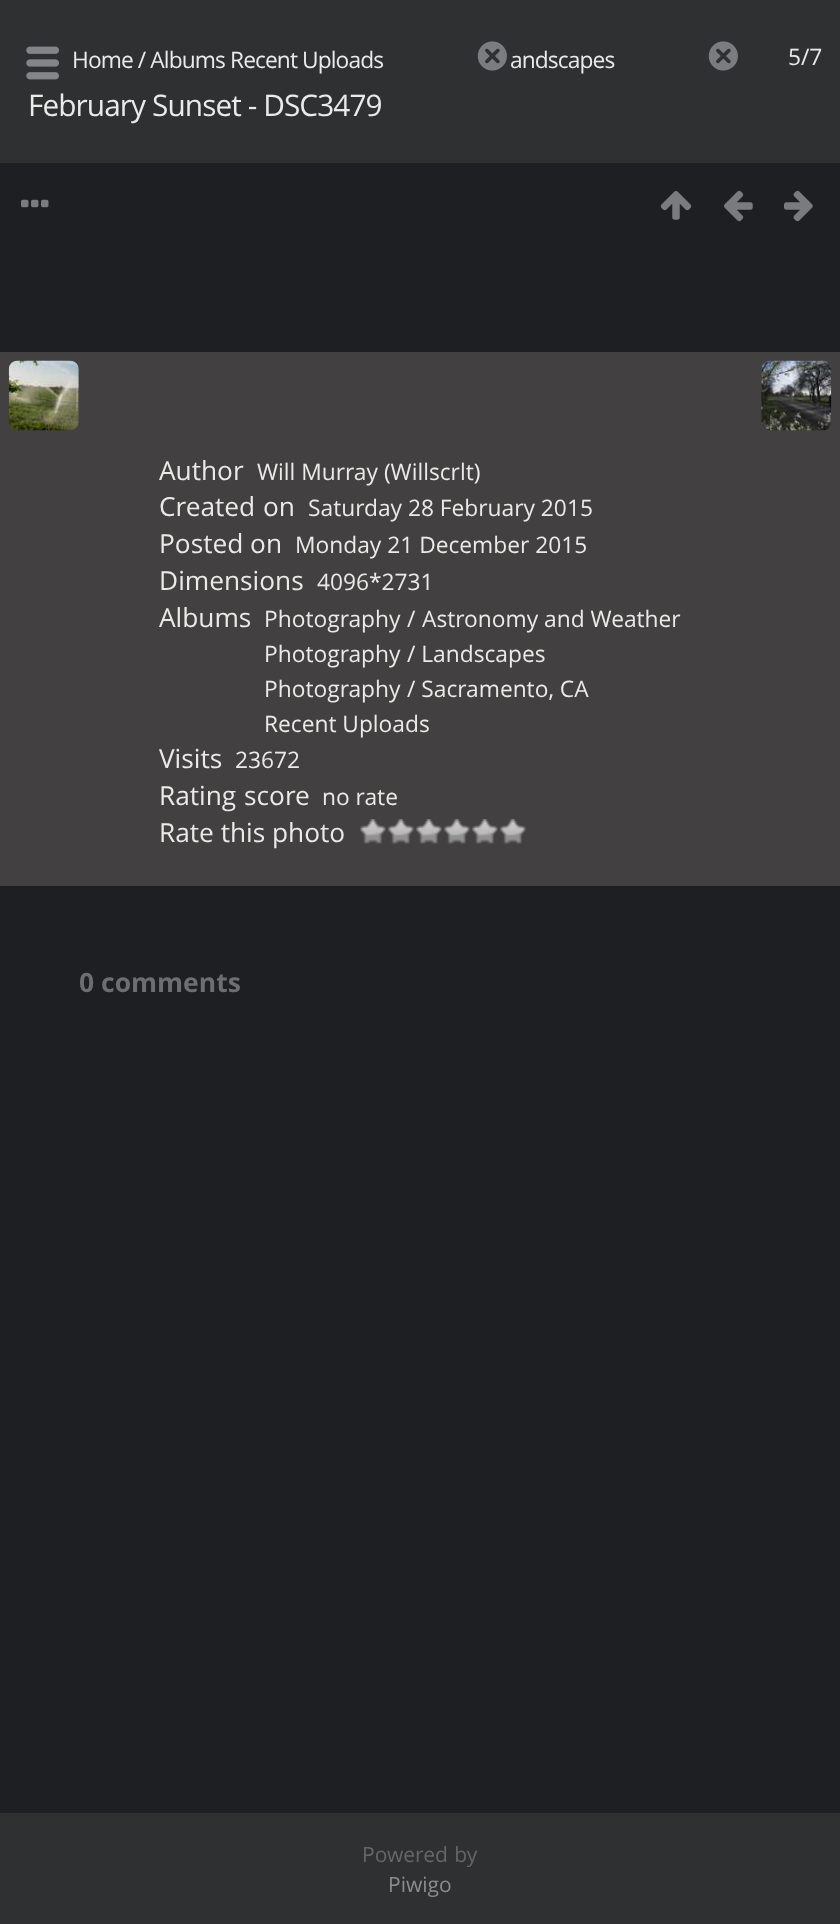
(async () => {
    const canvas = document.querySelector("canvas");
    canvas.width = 840;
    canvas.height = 1924;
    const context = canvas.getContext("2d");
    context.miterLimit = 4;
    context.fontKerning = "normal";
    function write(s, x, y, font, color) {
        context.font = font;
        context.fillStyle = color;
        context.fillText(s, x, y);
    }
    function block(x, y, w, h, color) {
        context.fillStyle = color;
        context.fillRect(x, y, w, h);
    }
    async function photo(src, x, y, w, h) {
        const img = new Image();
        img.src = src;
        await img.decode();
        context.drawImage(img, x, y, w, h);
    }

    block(0, 0, 840, 1924, "rgb(30, 31, 35)");
    block(0, 0, 840, 163, "rgb(47, 48, 50)");
    await photo("media/1.png", 26, 46, 33, 34);
    context.letterSpacing = "-0.9px";
    write("Home / Albums Recent Uploads", 72, 68, "22.75px Open Sans", "rgb(234, 234, 233)");
    await photo("media/2.png", 477, 41, 30, 30);
    write("andscapes", 510, 68, "22.75px Open Sans", "rgb(234, 234, 233)");
    await photo("media/3.png", 708, 41, 30, 30);
    write("February Sunset - DSC3479", 28, 116, "29.75px Open Sans", "rgb(234, 234, 233)");
    context.letterSpacing = "0px";
    write("5/7", 788, 65, "22.75px Open Sans", "rgb(234, 234, 233)");
    await photo("media/4.png", 21, 199, 28, 9);
    await photo("media/5.png", 660, 191, 32, 29);
    await photo("media/6.png", 724, 190, 29, 32);
    await photo("media/7.png", 784, 190, 29, 32);
    block(0, 352, 840, 534, "rgb(66, 64, 64)");
    await photo("media/8.png", 8, 360, 71, 71);
    await photo("media/9.png", 761, 360, 71, 71);
    write("Author", 159, 480, "26.25px Open Sans", "rgb(234, 234, 233)");
    write("Will Murray (Willscrlt)", 257, 480, "22.75px Open Sans", "rgb(234, 234, 233)");
    context.wordSpacing = "1px";
    write("Created on", 159, 516, "26.25px Open Sans", "rgb(234, 234, 233)");
    context.wordSpacing = "0px";
    write("Saturday 28 February 2015", 308, 516, "22.75px Open Sans", "rgb(234, 234, 233)");
    write("Posted on", 159, 553, "26.25px Open Sans", "rgb(234, 234, 233)");
    write("Monday 21 December 2015", 295, 553, "22.75px Open Sans", "rgb(234, 234, 233)");
    write("Dimensions", 159, 590, "26.25px Open Sans", "rgb(234, 234, 233)");
    write("4096*2731", 317, 590, "22.75px Open Sans", "rgb(234, 234, 233)");
    write("Albums", 159, 627, "26.25px Open Sans", "rgb(234, 234, 233)");
    write("Photography", 264, 627, "22.75px Open Sans", "rgb(234, 234, 233)");
    write("/", 407, 627, "22.75px Open Sans", "rgb(234, 234, 233)");
    write("Astronomy and Weather", 422, 627, "22.75px Open Sans", "rgb(234, 234, 233)");
    write("Photography", 264, 662, "22.75px Open Sans", "rgb(234, 234, 233)");
    write("/ Landscapes", 407, 662, "22.75px Open Sans", "rgb(234, 234, 233)");
    write("Photography", 264, 697, "22.75px Open Sans", "rgb(234, 234, 233)");
    write("/ Sacramento, CA", 407, 697, "22.75px Open Sans", "rgb(234, 234, 233)");
    write("Recent Uploads", 264, 732, "22.75px Open Sans", "rgb(234, 234, 233)");
    write("Visits", 159, 768, "26.25px Open Sans", "rgb(234, 234, 233)");
    write("23672", 235, 768, "22.75px Open Sans", "rgb(234, 234, 233)");
    context.wordSpacing = "1px";
    write("Rating score", 159, 805, "26.25px Open Sans", "rgb(234, 234, 233)");
    context.wordSpacing = "0px";
    write("no rate", 322, 805, "22.75px Open Sans", "rgb(234, 234, 233)");
    write("Rate this photo", 159, 842, "26.25px Open Sans", "rgb(234, 234, 233)");
    await photo("media/10.png", 359, 819, 28, 25);
    await photo("media/11.png", 387, 819, 28, 25);
    await photo("media/12.png", 415, 819, 28, 25);
    await photo("media/12.png", 443, 819, 28, 25);
    await photo("media/12.png", 471, 819, 28, 25);
    await photo("media/13.png", 499, 819, 28, 25);
    write("0 comments", 79, 992, "bold 26.5px Open Sans", "rgb(109, 110, 113)");
    block(0, 1813, 840, 111, "rgb(47, 48, 50)");
    context.wordSpacing = "1px";
    write("Powered by", 362, 1862, "21px Open Sans", "rgb(102, 102, 102)");
    context.wordSpacing = "0px";
    write("Piwigo", 388, 1892, "21px Open Sans", "rgb(141, 139, 139)");
})();
